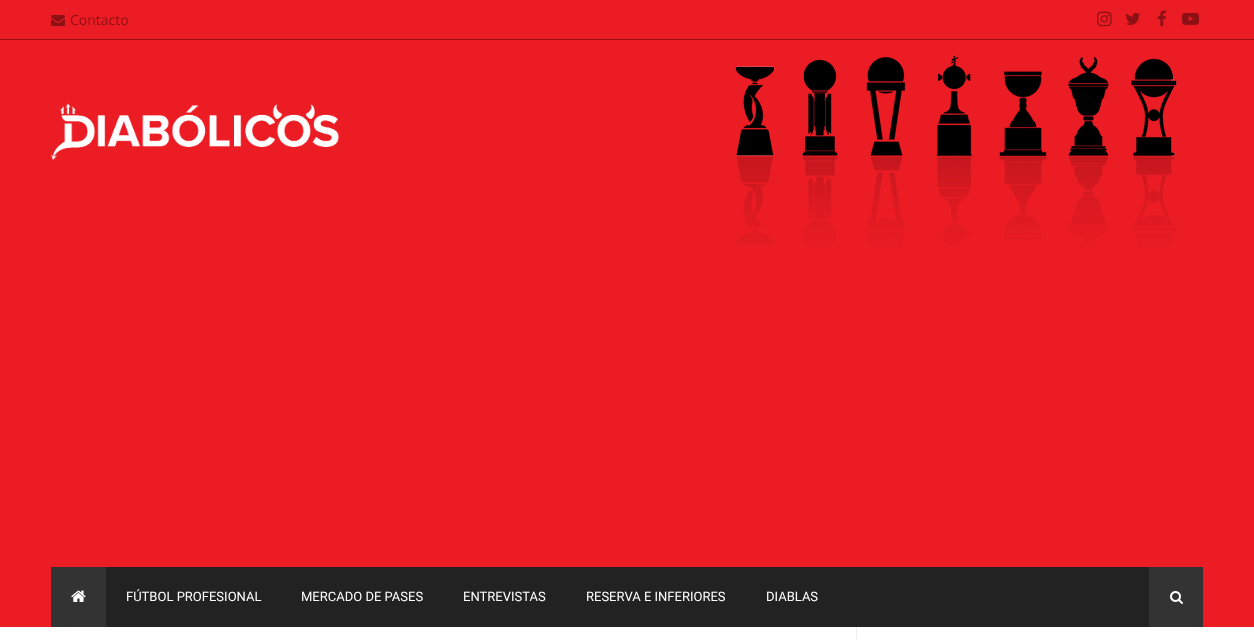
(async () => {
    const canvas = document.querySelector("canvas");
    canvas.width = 1254;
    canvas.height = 640;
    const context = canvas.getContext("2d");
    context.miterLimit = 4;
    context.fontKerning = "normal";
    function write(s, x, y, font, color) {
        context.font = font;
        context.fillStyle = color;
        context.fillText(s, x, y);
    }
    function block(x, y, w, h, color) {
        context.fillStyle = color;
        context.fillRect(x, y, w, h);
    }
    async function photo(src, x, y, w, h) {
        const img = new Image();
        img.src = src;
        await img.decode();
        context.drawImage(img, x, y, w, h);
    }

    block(0, 0, 1254, 640, "rgb(255, 255, 255)");
    block(0, 0, 1254, 627, "rgb(236, 28, 36)");
    block(0, 39, 1254, 1, "rgb(141, 16, 21)");
    await photo("media/1.png", 51, 15, 14, 11);
    write("Contacto", 70, 25, "14px Open Sans", "rgb(141, 16, 21)");
    await photo("media/2.png", 1097, 11, 15, 16);
    await photo("media/3.png", 1125, 12, 16, 13);
    await photo("media/4.png", 1157, 10, 10, 17);
    await photo("media/5.png", 1182, 12, 17, 13);
    await photo("media/6.png", 51, 103, 288, 58);
    await photo("media/7.png", 735, 55, 442, 192);
    block(106, 567, 1043, 60, "rgb(34, 34, 34)");
    block(51, 567, 55, 60, "rgb(51, 51, 51)");
    await photo("media/8.png", 71, 590, 15, 12);
    write("FÚTBOL PROFESIONAL", 126, 601, "13px Roboto", "rgb(255, 255, 255)");
    write("MERCADO DE PASES", 301, 601, "13px Roboto", "rgb(255, 255, 255)");
    write("ENTREVISTAS", 463, 601, "13px Roboto", "rgb(255, 255, 255)");
    write("RESERVA E INFERIORES", 586, 601, "13px Roboto", "rgb(255, 255, 255)");
    write("DIABLAS", 766, 601, "13px Roboto", "rgb(255, 255, 255)");
    block(1149, 567, 54, 60, "rgb(51, 51, 51)");
    await photo("media/9.png", 1170, 591, 13, 13);
    block(856, 627, 1, 13, "rgb(238, 238, 238)");
})();
